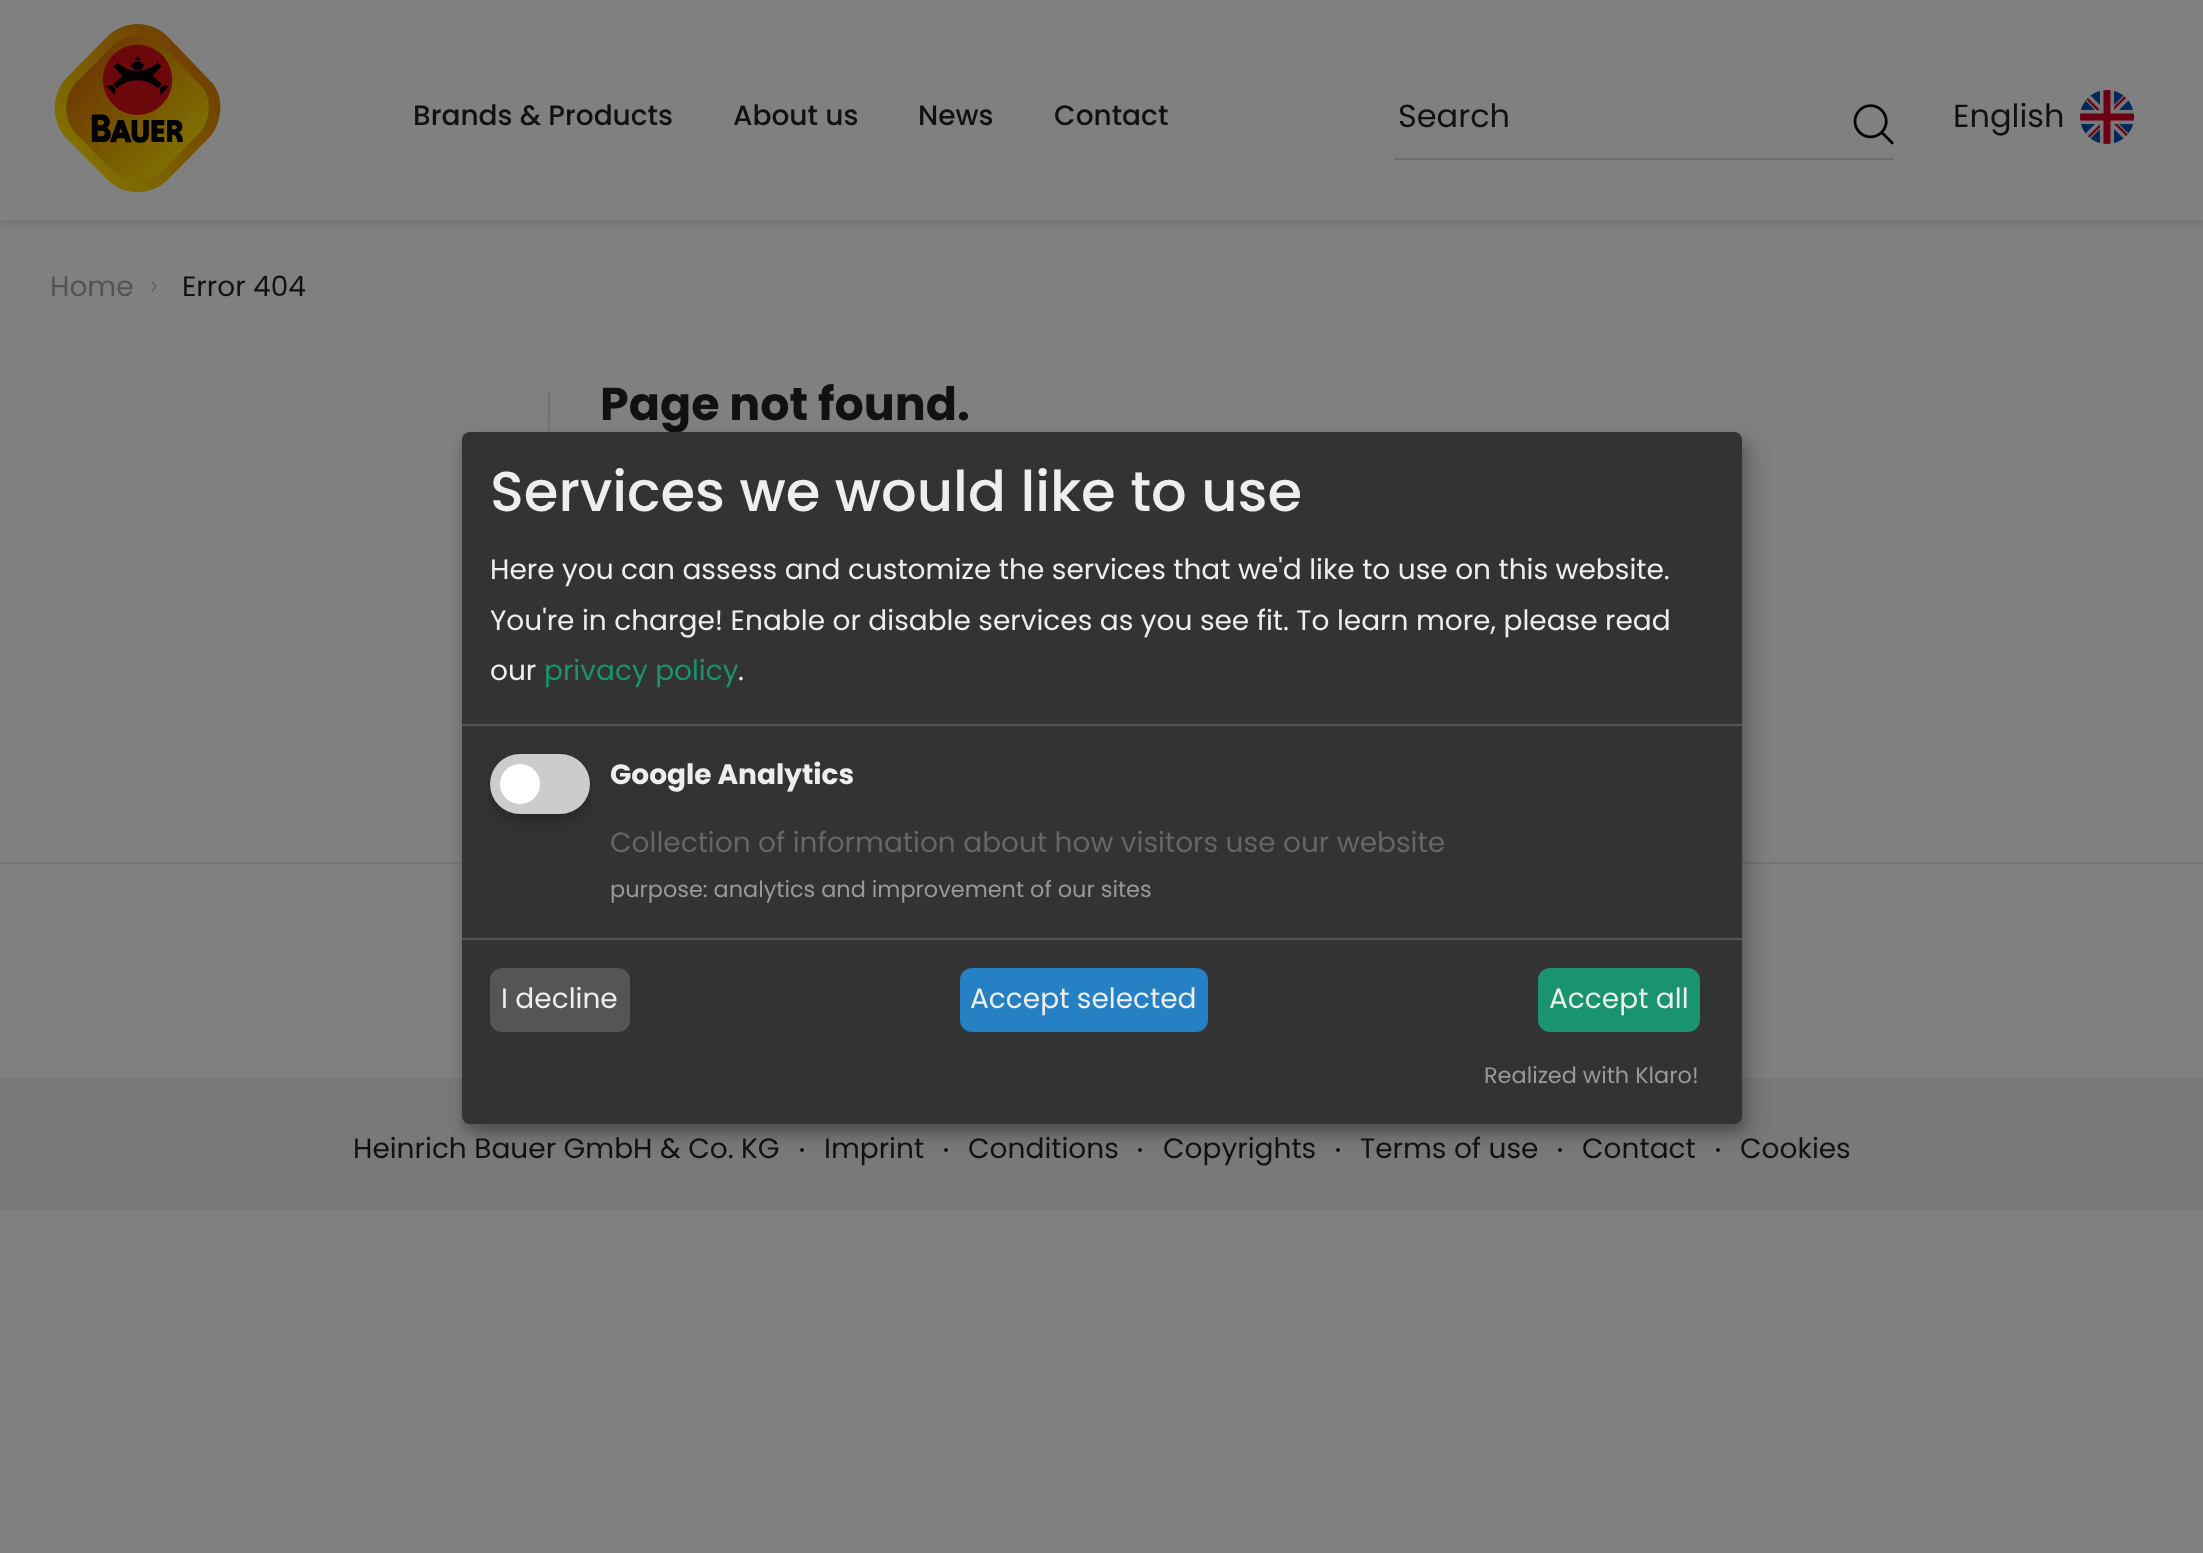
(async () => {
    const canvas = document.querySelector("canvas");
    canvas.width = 2203;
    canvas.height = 1553;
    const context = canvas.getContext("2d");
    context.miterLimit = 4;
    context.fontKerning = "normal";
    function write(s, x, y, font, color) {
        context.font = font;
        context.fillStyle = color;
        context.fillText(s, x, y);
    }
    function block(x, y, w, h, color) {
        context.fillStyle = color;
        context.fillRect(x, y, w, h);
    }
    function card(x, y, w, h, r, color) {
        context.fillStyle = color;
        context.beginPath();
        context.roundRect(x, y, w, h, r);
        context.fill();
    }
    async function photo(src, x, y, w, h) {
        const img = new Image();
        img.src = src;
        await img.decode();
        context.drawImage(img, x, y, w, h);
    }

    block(0, 0, 2203, 1553, "rgb(128, 128, 128)");
    context.save();
    context.beginPath();
    context.rect(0, 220, 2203, 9);
    context.clip();
    context.fillStyle = "rgba(0, 0, 0, 0.2)";
    context.filter = "blur(7px)";
    context.beginPath();
    context.rect(0, 0, 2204, 220);
    context.fill();
    context.filter = "none";
    context.restore();
    await photo("media/1.png", 54, 24, 167, 169);
    write("Brands & Products", 413, 125, "500 28px Poppins", "rgb(17, 17, 17)");
    write("About us", 733, 125, "500 28px Poppins", "rgb(17, 17, 17)");
    write("News", 918, 125, "500 28px Poppins", "rgb(17, 17, 17)");
    write("Contact", 1054, 125, "500 28px Poppins", "rgb(17, 17, 17)");
    write("Search", 1398, 127, "32px Poppins", "rgb(17, 17, 17)");
    await photo("media/2.png", 1853, 104, 41, 41);
    block(1394, 158, 500, 2, "rgb(110, 110, 110)");
    write("English", 1953, 127, "32px Poppins", "rgb(17, 17, 17)");
    await photo("media/3.png", 2080, 90, 54, 54);
    write("Home", 50, 296, "28px Poppins", "rgb(83, 83, 85)");
    await photo("media/4.png", 152, 281, 5, 11);
    write("Error 404", 182, 296, "28px Poppins", "rgb(17, 17, 17)");
    block(548, 390, 2, 42, "rgb(115, 115, 115)");
    write("Page not found.", 600, 420, "bold 46px Poppins", "rgb(17, 17, 17)");
    block(0, 862, 2203, 2, "rgb(117, 117, 118)");
    block(0, 1078, 2203, 132, "rgb(121, 121, 123)");
    context.fillStyle = "rgb(17, 17, 17)";
    context.beginPath();
    context.arc(802, 1150, 2, 0, Math.PI * 2);
    context.fill();
    context.beginPath();
    context.arc(946, 1150, 2, 0, Math.PI * 2);
    context.fill();
    context.beginPath();
    context.arc(1140, 1150, 2, 0, Math.PI * 2);
    context.fill();
    context.beginPath();
    context.arc(1338, 1150, 2, 0, Math.PI * 2);
    context.fill();
    context.beginPath();
    context.arc(1560, 1150, 2, 0, Math.PI * 2);
    context.fill();
    context.beginPath();
    context.arc(1718, 1150, 2, 0, Math.PI * 2);
    context.fill();
    context.fillStyle = "rgba(0, 0, 0, 0.19)";
    context.filter = "blur(10px)";
    context.beginPath();
    context.roundRect(472, 442, 1280, 692, 8);
    context.fill();
    context.filter = "none";
    context.fillStyle = "rgba(0, 0, 0, 0.2)";
    context.filter = "blur(6px)";
    context.beginPath();
    context.roundRect(462, 440, 1280, 692, 8);
    context.fill();
    context.filter = "none";
    card(462, 432, 1280, 692, 8, "rgb(51, 51, 51)");
    block(462, 724, 1280, 2, "rgb(85, 85, 85)");
    write("Services we would like to use", 490, 511, "500 56px Poppins", "rgb(238, 238, 238)");
    write("Here you can assess and customize the services that we'd like to use on this website.", 490, 579, "28px Poppins", "rgb(238, 238, 238)");
    write("You're in charge! Enable or disable services as you see fit. To learn more, please read", 490, 630, "28px Poppins", "rgb(238, 238, 238)");
    write("our", 490, 680, "28px Poppins", "rgb(238, 238, 238)");
    write("privacy policy", 544, 680, "28px Poppins", "rgb(26, 147, 111)");
    write(".", 738, 680, "28px Poppins", "rgb(238, 238, 238)");
    context.fillStyle = "rgba(0, 0, 0, 0.2)";
    context.filter = "blur(6px)";
    context.beginPath();
    context.roundRect(490, 762, 100, 60, 30);
    context.fill();
    context.filter = "none";
    card(490, 754, 100, 60, 30, "rgb(204, 204, 204)");
    context.fillStyle = "rgb(255, 255, 255)";
    context.beginPath();
    context.arc(520, 784, 20, 0, Math.PI * 2);
    context.fill();
    write("Google Analytics", 610, 784, "bold 28px Poppins", "rgb(238, 238, 238)");
    write("Collection of information about how visitors use our website", 610, 852, "28px Poppins", "rgb(102, 102, 102)");
    write("purpose: analytics and improvement of our sites", 610, 897, "22.4px Poppins", "rgb(153, 153, 153)");
    block(462, 938, 1280, 2, "rgb(85, 85, 85)");
    card(490, 968, 140, 64, 12, "rgb(85, 85, 85)");
    write("I decline", 501, 1008, "28px Poppins", "rgb(238, 238, 238)");
    card(960, 968, 248, 64, 12, "rgb(37, 129, 196)");
    write("Accept selected", 970, 1008, "28px Poppins", "rgb(238, 238, 238)");
    card(1538, 968, 162, 64, 12, "rgb(26, 147, 111)");
    write("Accept all", 1549, 1008, "28px Poppins", "rgb(238, 238, 238)");
    write("Realized with Klaro!", 1484, 1083, "22.4px Poppins", "rgb(153, 153, 153)");
    write("Heinrich Bauer GmbH & Co. KG", 353, 1158, "28px Poppins", "rgb(17, 17, 17)");
    write("Imprint", 824, 1158, "28px Poppins", "rgb(17, 17, 17)");
    write("Conditions", 968, 1158, "28px Poppins", "rgb(17, 17, 17)");
    write("Copyrights", 1163, 1158, "28px Poppins", "rgb(17, 17, 17)");
    write("Terms of use", 1360, 1158, "28px Poppins", "rgb(17, 17, 17)");
    write("Contact", 1582, 1158, "28px Poppins", "rgb(17, 17, 17)");
    write("Cookies", 1740, 1158, "28px Poppins", "rgb(17, 17, 17)");
})();
